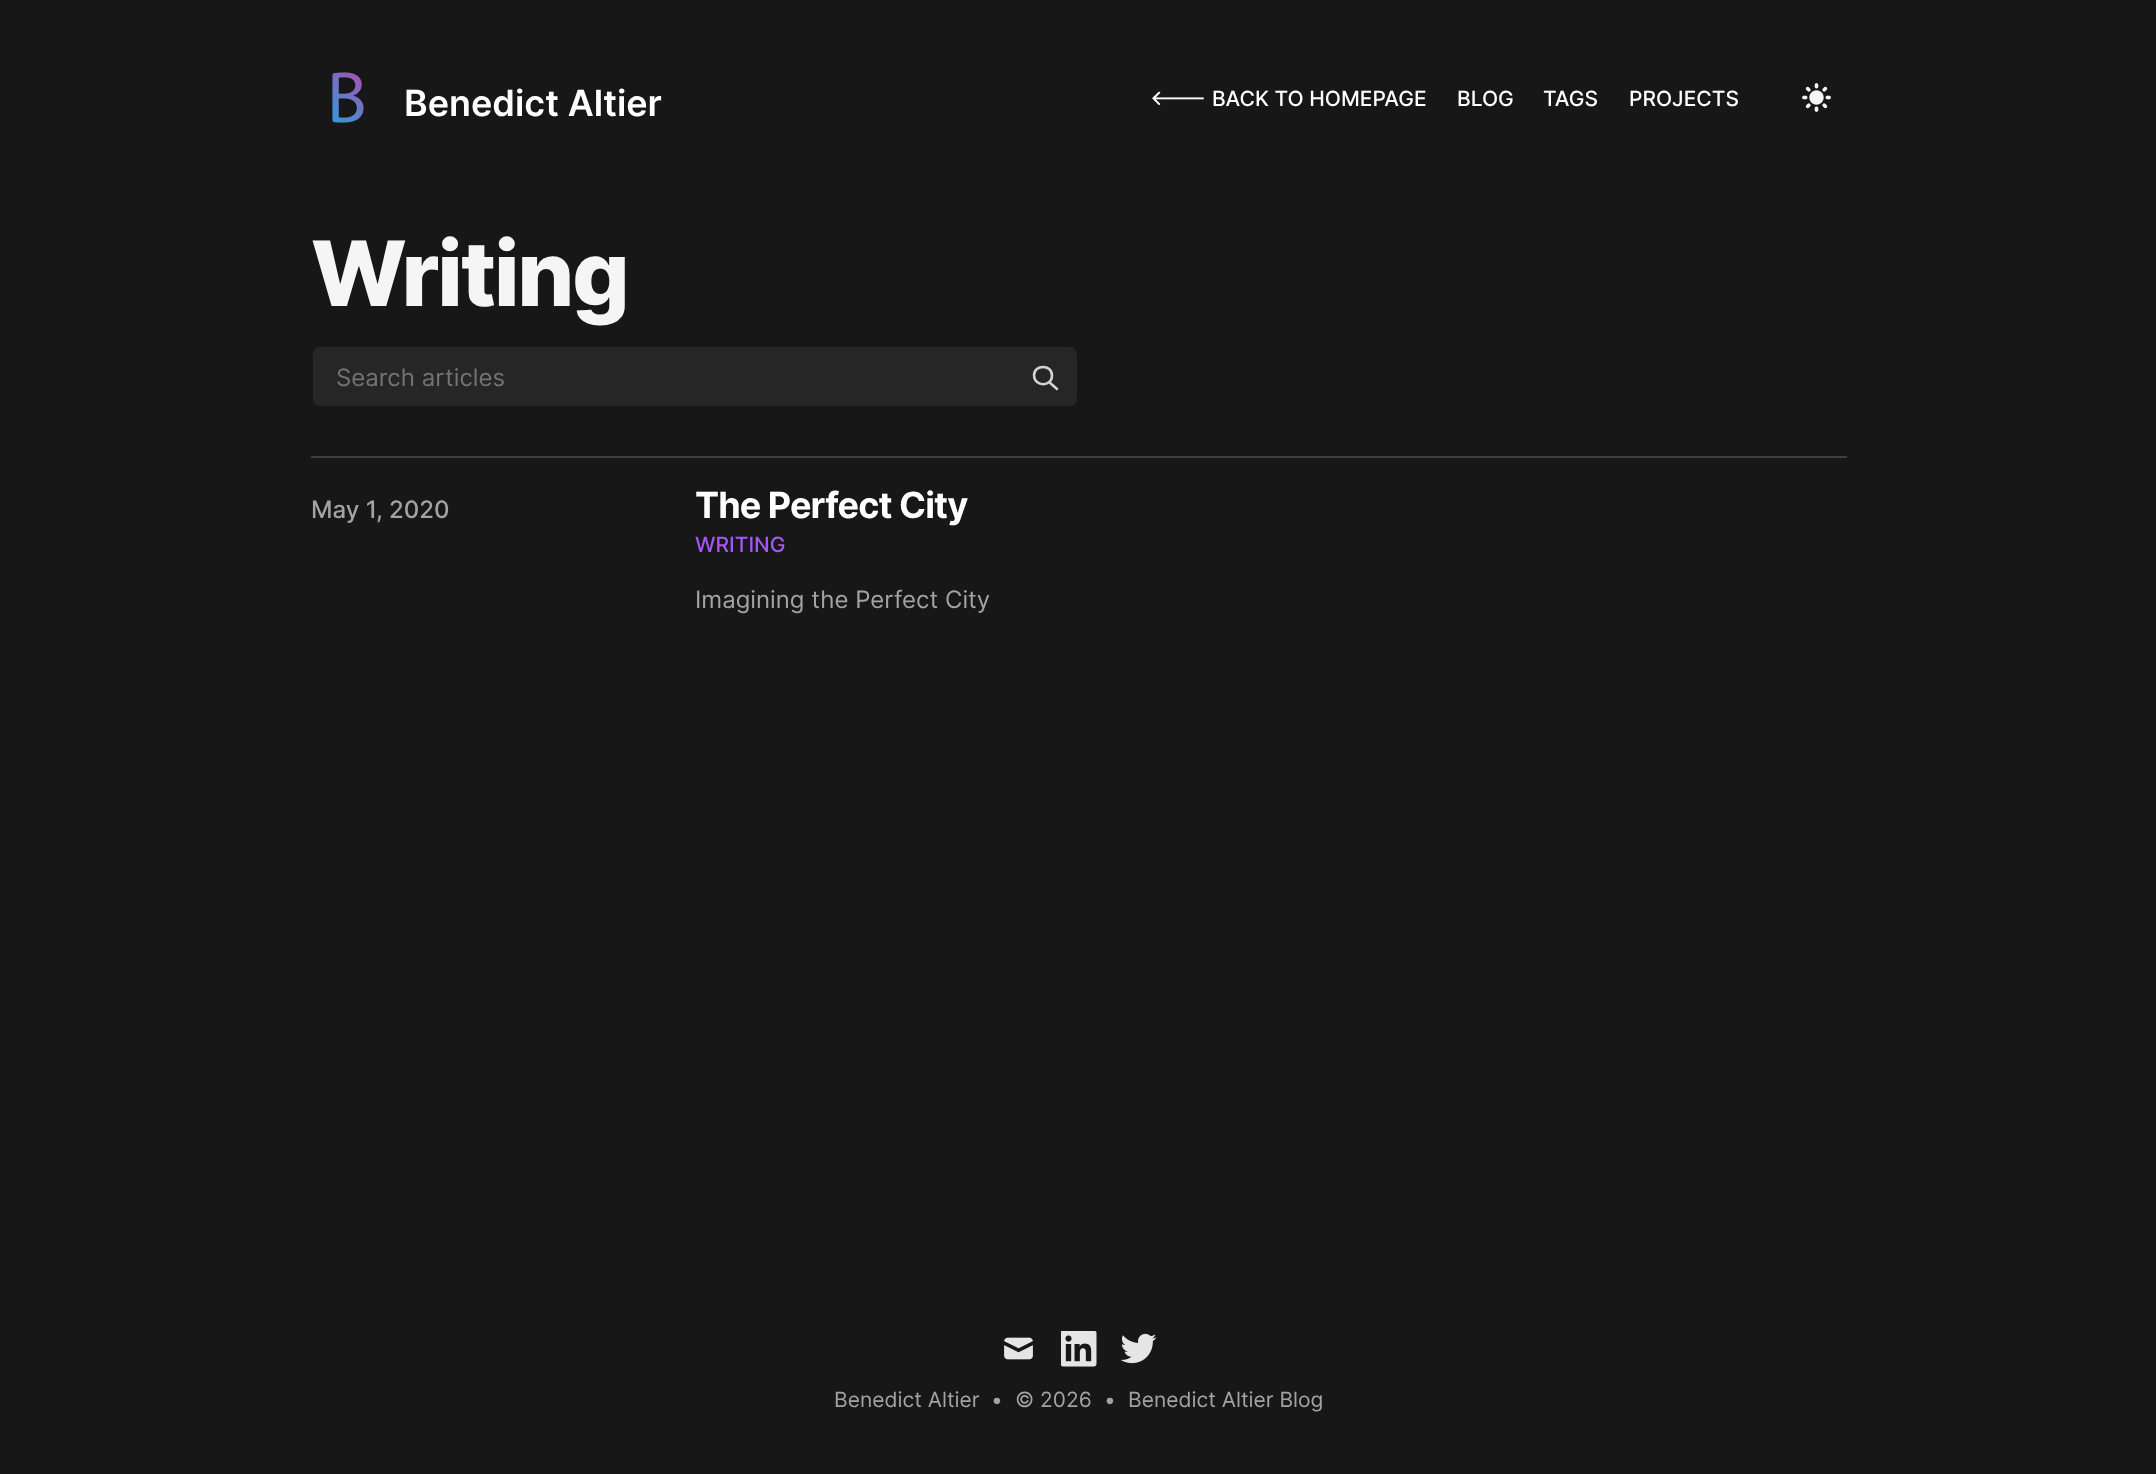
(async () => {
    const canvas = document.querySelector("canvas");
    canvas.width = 2156;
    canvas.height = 1474;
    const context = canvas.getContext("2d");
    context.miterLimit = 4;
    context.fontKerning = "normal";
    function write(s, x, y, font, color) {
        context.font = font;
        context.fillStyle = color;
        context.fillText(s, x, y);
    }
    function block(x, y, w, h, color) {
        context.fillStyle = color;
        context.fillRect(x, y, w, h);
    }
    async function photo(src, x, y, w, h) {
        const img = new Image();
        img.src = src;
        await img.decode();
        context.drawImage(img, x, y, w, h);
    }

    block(0, 0, 2156, 1474, "rgb(23, 23, 23)");
    await photo("media/1.png", 332, 72, 32, 51);
    write("Benedict Altier", 404, 116, "italic 600 36px Inter", "rgb(255, 255, 255)");
    write("<--- BACK TO HOMEPAGE", 1150, 106, "italic 500 21px Inter", "rgb(255, 255, 255)");
    write("BLOG", 1457, 106, "italic 500 21px Inter", "rgb(255, 255, 255)");
    write("TAGS", 1543, 106, "italic 500 21px Inter", "rgb(255, 255, 255)");
    write("PROJECTS", 1629, 106, "italic 500 21px Inter", "rgb(255, 255, 255)");
    await photo("media/2.png", 1802, 83, 29, 29);
    context.letterSpacing = "-2.25px";
    write("Writing", 311, 306, "italic 800 90px Inter", "rgb(245, 245, 245)");
    context.fillStyle = "rgb(38, 38, 38)";
    context.beginPath();
    context.roundRect(312, 346, 766, 61, 8);
    context.fill();
    context.strokeStyle = "rgb(23, 23, 23)";
    context.lineWidth = 2;
    context.stroke();
    context.letterSpacing = "0px";
    write("Search articles", 336, 386, "italic 24px Inter", "rgb(115, 115, 115)");
    context.beginPath();
    context.moveTo(1057, 389);
    context.lineTo(1049, 382);
    context.moveTo(1052, 375.5);
    context.bezierCurveTo(1052, 387, 1034.5, 387, 1034, 375.5);
    context.bezierCurveTo(1034, 364, 1052, 364, 1052, 375.5);
    context.closePath();
    context.strokeStyle = "rgb(212, 212, 212)";
    context.lineWidth = 2.5;
    context.lineCap = "round";
    context.lineJoin = "round";
    context.stroke();
    block(311, 456, 1536, 2, "rgb(64, 64, 64)");
    write("May 1, 2020", 311, 518, "italic 500 24px Inter", "rgb(163, 163, 163)");
    context.letterSpacing = "-0.9px";
    write("The Perfect City", 695, 518, "italic bold 36px Inter", "rgb(255, 255, 255)");
    context.letterSpacing = "0px";
    write("WRITING", 695, 552, "italic 500 21px Inter", "rgb(168, 85, 247)");
    write("Imagining the Perfect City", 695, 608, "italic 24px Inter", "rgb(163, 163, 163)");
    await photo("media/3.png", 1004, 1337, 29, 23);
    await photo("media/4.png", 1061, 1331, 36, 36);
    await photo("media/5.png", 1121, 1333, 36, 31);
    write("Benedict Altier", 834, 1407, "italic 21px Inter", "rgb(163, 163, 163)");
    write("•", 991, 1407, "italic 21px Inter", "rgb(163, 163, 163)");
    write("© 2026", 1015, 1407, "italic 21px Inter", "rgb(163, 163, 163)");
    write("•", 1104, 1407, "italic 21px Inter", "rgb(163, 163, 163)");
    write("Benedict Altier Blog", 1128, 1407, "italic 21px Inter", "rgb(163, 163, 163)");
})();
